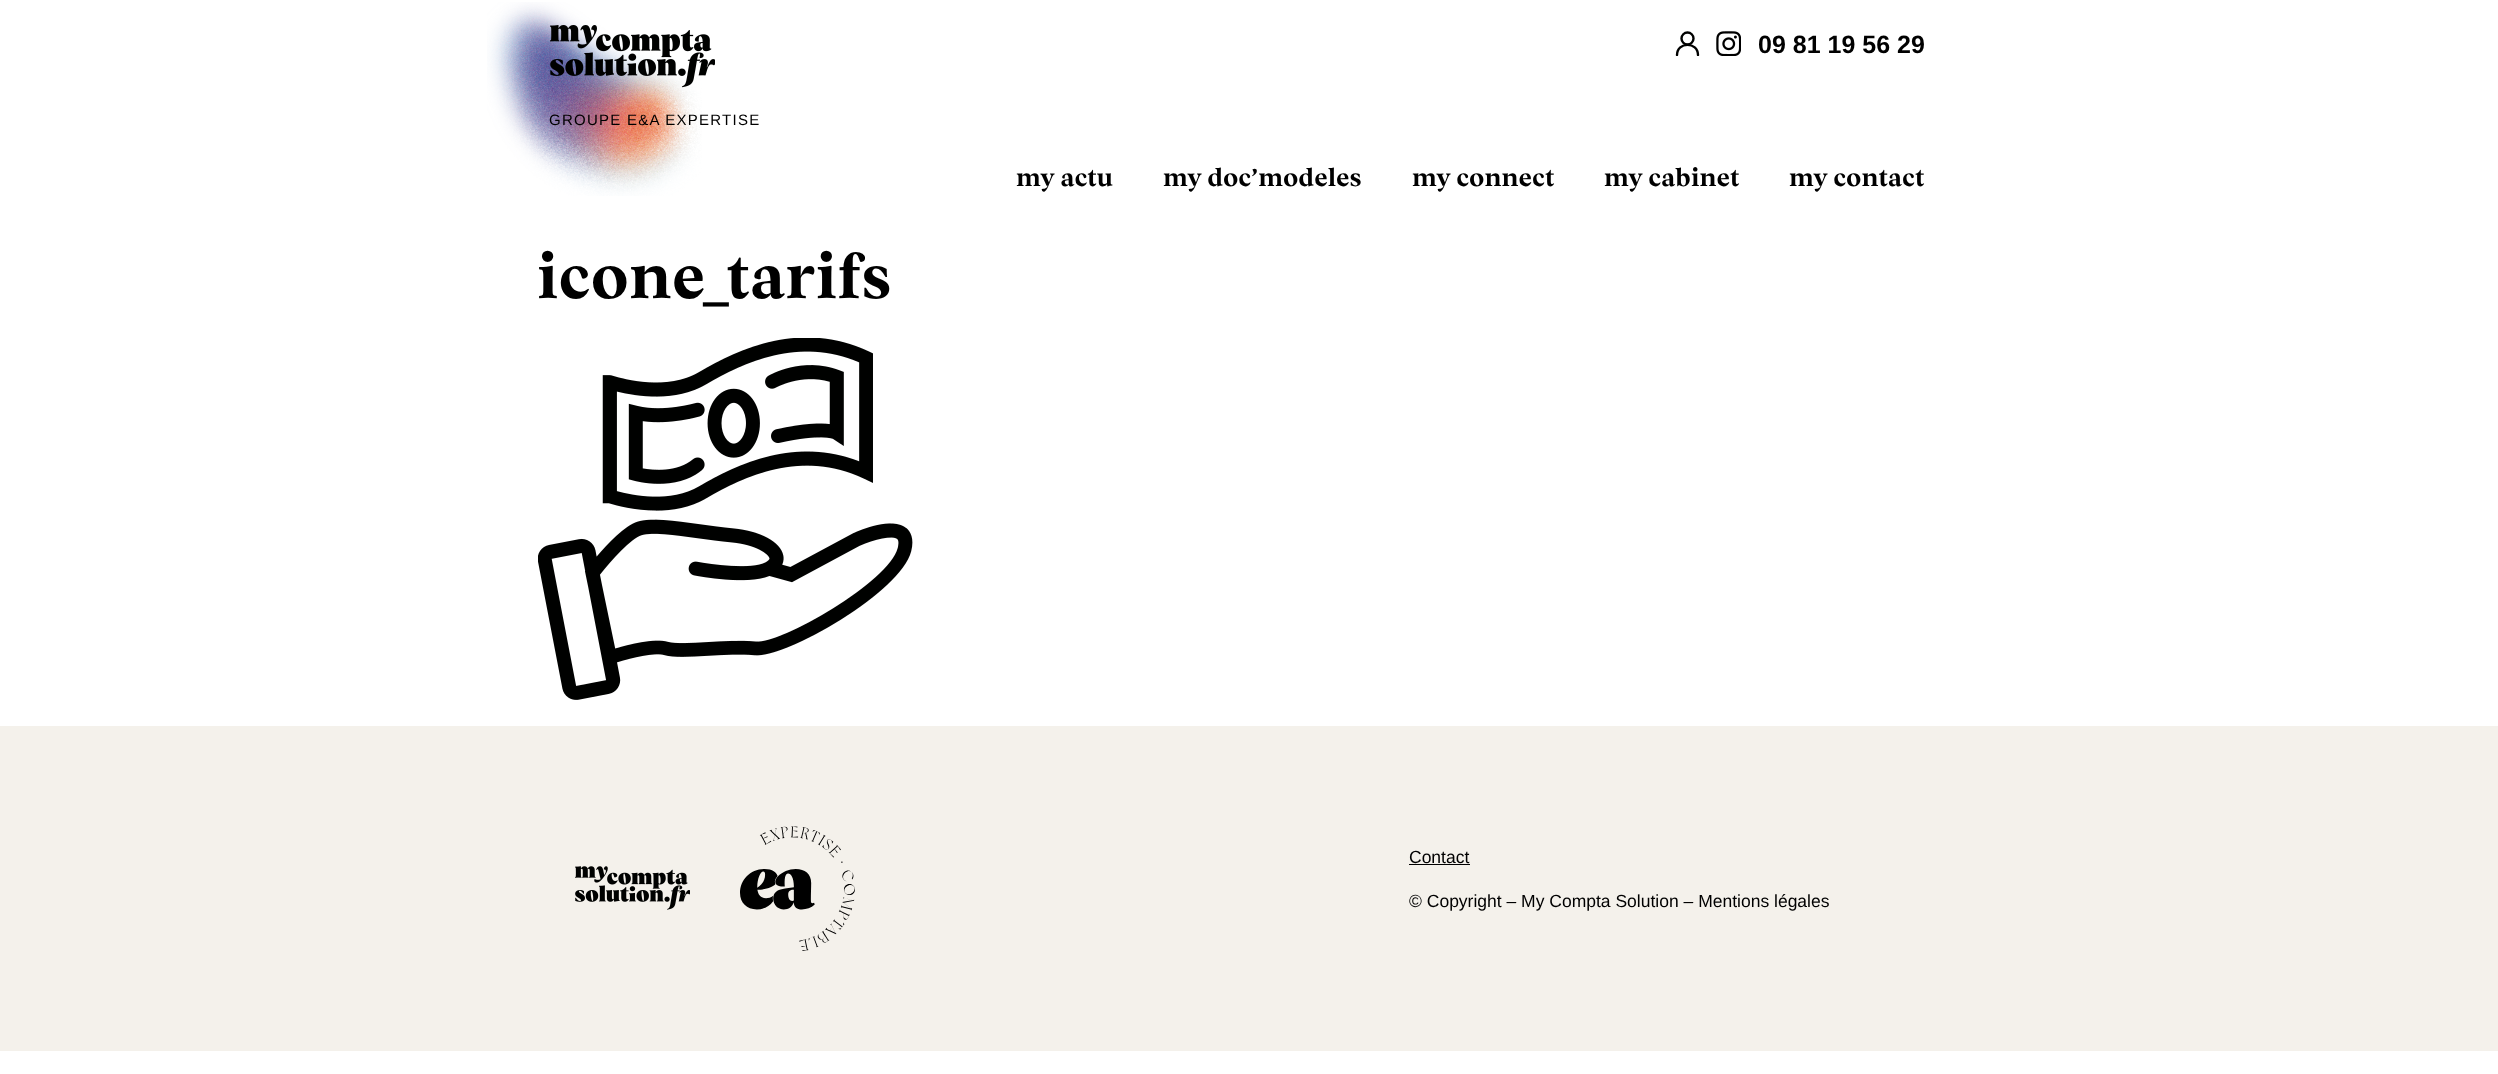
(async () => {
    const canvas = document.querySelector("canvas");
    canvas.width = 2498;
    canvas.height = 1074;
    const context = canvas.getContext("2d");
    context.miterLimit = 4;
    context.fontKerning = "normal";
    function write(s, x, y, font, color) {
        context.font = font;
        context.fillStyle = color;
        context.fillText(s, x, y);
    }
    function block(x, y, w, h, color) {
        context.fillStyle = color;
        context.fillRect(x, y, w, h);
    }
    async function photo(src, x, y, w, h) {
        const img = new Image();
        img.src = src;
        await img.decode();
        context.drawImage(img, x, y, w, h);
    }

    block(0, 0, 2498, 1074, "rgb(255, 255, 255)");
    await photo("media/1.png", 487, 2, 215, 194);
    await photo("media/2.png", 550, 25, 165, 63);
    context.letterSpacing = "1.25px";
    write("GROUPE E&A EXPERTISE", 549, 125, "15px Liberation Sans", "rgb(0, 0, 0)");
    context.beginPath();
    context.arc(1687.5, 38.5, 6, 0, Math.PI * 2);
    context.strokeStyle = "rgb(0, 1, 0)";
    context.lineWidth = 2.4;
    context.stroke();
    context.save();
    context.beginPath();
    context.rect(1675, 31, 25, 25);
    context.clip();
    context.beginPath();
    context.moveTo(1698, 55);
    context.bezierCurveTo(1698, 41.5, 1677, 41.5, 1677, 55);
    context.lineCap = "round";
    context.lineJoin = "round";
    context.stroke();
    context.restore();
    await photo("media/3.png", 1716, 31, 25, 25);
    context.letterSpacing = "0px";
    write("09 81 19 56 29", 1758, 53, "bold 25px Liberation Sans", "rgb(0, 0, 0)");
    write("my actu", 1016, 186, "bold 25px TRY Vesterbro", "rgb(0, 0, 0)");
    write("my doc’modeles", 1163, 186, "bold 25px TRY Vesterbro", "rgb(0, 0, 0)");
    write("my connect", 1412, 186, "bold 25px TRY Vesterbro", "rgb(0, 0, 0)");
    write("my cabinet", 1604, 186, "bold 25px TRY Vesterbro", "rgb(0, 0, 0)");
    write("my contact", 1789, 186, "bold 25px TRY Vesterbro", "rgb(0, 0, 0)");
    write("icone_tarifs", 537, 298, "bold 62.5px TRY Vesterbro", "rgb(0, 0, 0)");
    await photo("media/4.png", 538, 338, 375, 362);
    block(0, 726, 2498, 325, "rgb(244, 241, 235)");
    await photo("media/5.png", 575, 866, 115, 44);
    await photo("media/6.png", 740, 826, 115, 125);
    write("Contact", 1409, 863, "17.5px Liberation Sans", "rgb(0, 0, 0)");
    block(1409, 864, 61, 1, "rgb(0, 0, 0)");
    write("© Copyright – My Compta Solution – Mentions légales", 1409, 907, "17.5px Liberation Sans", "rgb(0, 0, 0)");
})();
